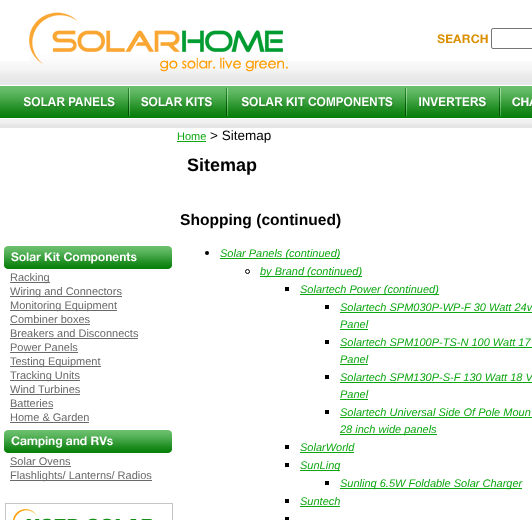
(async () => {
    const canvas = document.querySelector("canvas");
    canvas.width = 532;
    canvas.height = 520;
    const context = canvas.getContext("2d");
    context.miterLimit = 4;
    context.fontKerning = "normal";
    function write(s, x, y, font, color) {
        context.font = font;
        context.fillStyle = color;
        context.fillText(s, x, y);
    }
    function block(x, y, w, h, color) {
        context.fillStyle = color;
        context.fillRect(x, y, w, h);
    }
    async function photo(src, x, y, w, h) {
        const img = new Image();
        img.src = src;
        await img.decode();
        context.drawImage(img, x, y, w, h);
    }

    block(0, 0, 532, 520, "rgb(255, 255, 255)");
    await photo("media/1.png", 0, 61, 532, 24);
    await photo("media/2.png", 29, 12, 259, 60);
    await photo("media/3.png", 437, 34, 51, 10);
    context.beginPath();
    context.roundRect(491.5, 28.5, 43, 20, 1.5);
    context.strokeStyle = "rgb(118, 118, 118)";
    context.stroke();
    await photo("media/4.png", 0, 86, 532, 32);
    await photo("media/5.png", 23, 97, 93, 12);
    await photo("media/6.png", 128, 88, 85, 28);
    await photo("media/7.png", 226, 88, 168, 28);
    await photo("media/8.png", 405, 88, 82, 28);
    await photo("media/9.png", 499, 88, 33, 28);
    await photo("media/10.png", 0, 119, 532, 9);
    await photo("media/11.png", 4, 246, 168, 23);
    block(10, 282, 40, 1, "rgb(105, 105, 105)");
    write("Racking", 10, 281, "11px Liberation Sans", "rgb(105, 105, 105)");
    block(10, 296, 112, 1, "rgb(105, 105, 105)");
    write("Wiring and Connectors", 10, 295, "11px Liberation Sans", "rgb(105, 105, 105)");
    block(10, 310, 107, 1, "rgb(105, 105, 105)");
    write("Monitoring Equipment", 10, 309, "11px Liberation Sans", "rgb(105, 105, 105)");
    write("Combiner boxes", 10, 323, "11px Liberation Sans", "rgb(105, 105, 105)");
    block(10, 324, 80, 1, "rgb(105, 105, 105)");
    write("Breakers and Disconnects", 10, 337, "11px Liberation Sans", "rgb(105, 105, 105)");
    block(10, 338, 128, 1, "rgb(105, 105, 105)");
    write("Power Panels", 10, 351, "11px Liberation Sans", "rgb(105, 105, 105)");
    block(10, 352, 68, 1, "rgb(105, 105, 105)");
    block(10, 366, 91, 1, "rgb(105, 105, 105)");
    write("Testing Equipment", 10, 365, "11px Liberation Sans", "rgb(105, 105, 105)");
    block(10, 380, 70, 1, "rgb(105, 105, 105)");
    write("Tracking Units", 10, 379, "11px Liberation Sans", "rgb(105, 105, 105)");
    write("Wind Turbines", 10, 393, "11px Liberation Sans", "rgb(105, 105, 105)");
    block(10, 394, 70, 1, "rgb(105, 105, 105)");
    write("Batteries", 10, 407, "11px Liberation Sans", "rgb(105, 105, 105)");
    block(10, 408, 43, 1, "rgb(105, 105, 105)");
    write("Home & Garden", 10, 421, "11px Liberation Sans", "rgb(105, 105, 105)");
    block(10, 422, 79, 1, "rgb(105, 105, 105)");
    await photo("media/12.png", 4, 430, 168, 23);
    write("Solar Ovens", 10, 465, "11px Liberation Sans", "rgb(105, 105, 105)");
    block(10, 466, 61, 1, "rgb(105, 105, 105)");
    block(10, 480, 142, 1, "rgb(105, 105, 105)");
    write("Flashlights/ Lanterns/ Radios", 10, 479, "11px Liberation Sans", "rgb(105, 105, 105)");
    await photo("media/13.png", 5, 503, 168, 17);
    write("Home", 177, 140, "11px Liberation Sans", "rgb(14, 167, 18)");
    block(177, 141, 29, 1, "rgb(14, 167, 18)");
    write("> Sitemap", 210, 140, "13.5px Liberation Sans", "rgb(0, 0, 0)");
    write("Sitemap", 187, 171, "bold 18px Liberation Sans", "rgb(0, 0, 0)");
    write("Shopping (continued)", 180, 225, "bold 15.6px Liberation Sans", "rgb(0, 0, 0)");
    context.beginPath();
    context.arc(207, 253, 2, 0, Math.PI * 2);
    context.fill();
    block(220, 258, 120, 1, "rgb(14, 167, 18)");
    write("Solar Panels (continued)", 220, 257, "italic 11px Liberation Sans", "rgb(14, 167, 18)");
    context.beginPath();
    context.arc(247.5, 271.5, 2, 0, Math.PI * 2);
    context.strokeStyle = "rgb(0, 0, 0)";
    context.stroke();
    block(260, 276, 102, 1, "rgb(14, 167, 18)");
    write("by Brand (continued)", 260, 275, "italic 11px Liberation Sans", "rgb(14, 167, 18)");
    block(285, 287, 4, 4, "rgb(0, 0, 0)");
    block(300, 294, 139, 1, "rgb(14, 167, 18)");
    write("Solartech Power (continued)", 300, 293, "italic 11px Liberation Sans", "rgb(14, 167, 18)");
    block(325, 305, 4, 4, "rgb(0, 0, 0)");
    write("Solartech SPM030P-WP-F 30 Watt 24v", 340, 311, "italic 11px Liberation Sans", "rgb(14, 167, 18)");
    block(340, 312, 192, 1, "rgb(14, 167, 18)");
    write("Panel", 340, 328, "italic 11px Liberation Sans", "rgb(14, 167, 18)");
    block(340, 329, 28, 1, "rgb(14, 167, 18)");
    block(325, 340, 4, 4, "rgb(0, 0, 0)");
    write("Solartech SPM100P-TS-N 100 Watt 17", 340, 346, "italic 11px Liberation Sans", "rgb(14, 167, 18)");
    block(340, 347, 192, 1, "rgb(14, 167, 18)");
    write("Panel", 340, 363, "italic 11px Liberation Sans", "rgb(14, 167, 18)");
    block(340, 364, 28, 1, "rgb(14, 167, 18)");
    block(325, 375, 4, 4, "rgb(0, 0, 0)");
    write("Solartech SPM130P-S-F 130 Watt 18 V", 340, 381, "italic 11px Liberation Sans", "rgb(14, 167, 18)");
    block(340, 382, 192, 1, "rgb(14, 167, 18)");
    write("Panel", 340, 398, "italic 11px Liberation Sans", "rgb(14, 167, 18)");
    block(340, 399, 28, 1, "rgb(14, 167, 18)");
    block(325, 410, 4, 4, "rgb(0, 0, 0)");
    write("Solartech Universal Side Of Pole Moun", 340, 416, "italic 11px Liberation Sans", "rgb(14, 167, 18)");
    block(340, 417, 192, 1, "rgb(14, 167, 18)");
    block(340, 434, 97, 1, "rgb(14, 167, 18)");
    write("28 inch wide panels", 340, 433, "italic 11px Liberation Sans", "rgb(14, 167, 18)");
    block(285, 445, 4, 4, "rgb(0, 0, 0)");
    write("SolarWorld", 300, 451, "italic 11px Liberation Sans", "rgb(14, 167, 18)");
    block(300, 452, 54, 1, "rgb(14, 167, 18)");
    block(285, 463, 4, 4, "rgb(0, 0, 0)");
    block(300, 470, 40, 1, "rgb(14, 167, 18)");
    write("SunLinq", 300, 469, "italic 11px Liberation Sans", "rgb(14, 167, 18)");
    block(325, 481, 4, 4, "rgb(0, 0, 0)");
    block(340, 488, 182, 1, "rgb(14, 167, 18)");
    write("Sunlinq 6.5W Foldable Solar Charger", 340, 487, "italic 11px Liberation Sans", "rgb(14, 167, 18)");
    block(285, 499, 4, 4, "rgb(0, 0, 0)");
    write("Suntech", 300, 505, "italic 11px Liberation Sans", "rgb(14, 167, 18)");
    block(300, 506, 40, 1, "rgb(14, 167, 18)");
    block(285, 517, 4, 3, "rgb(0, 0, 0)");
})();
